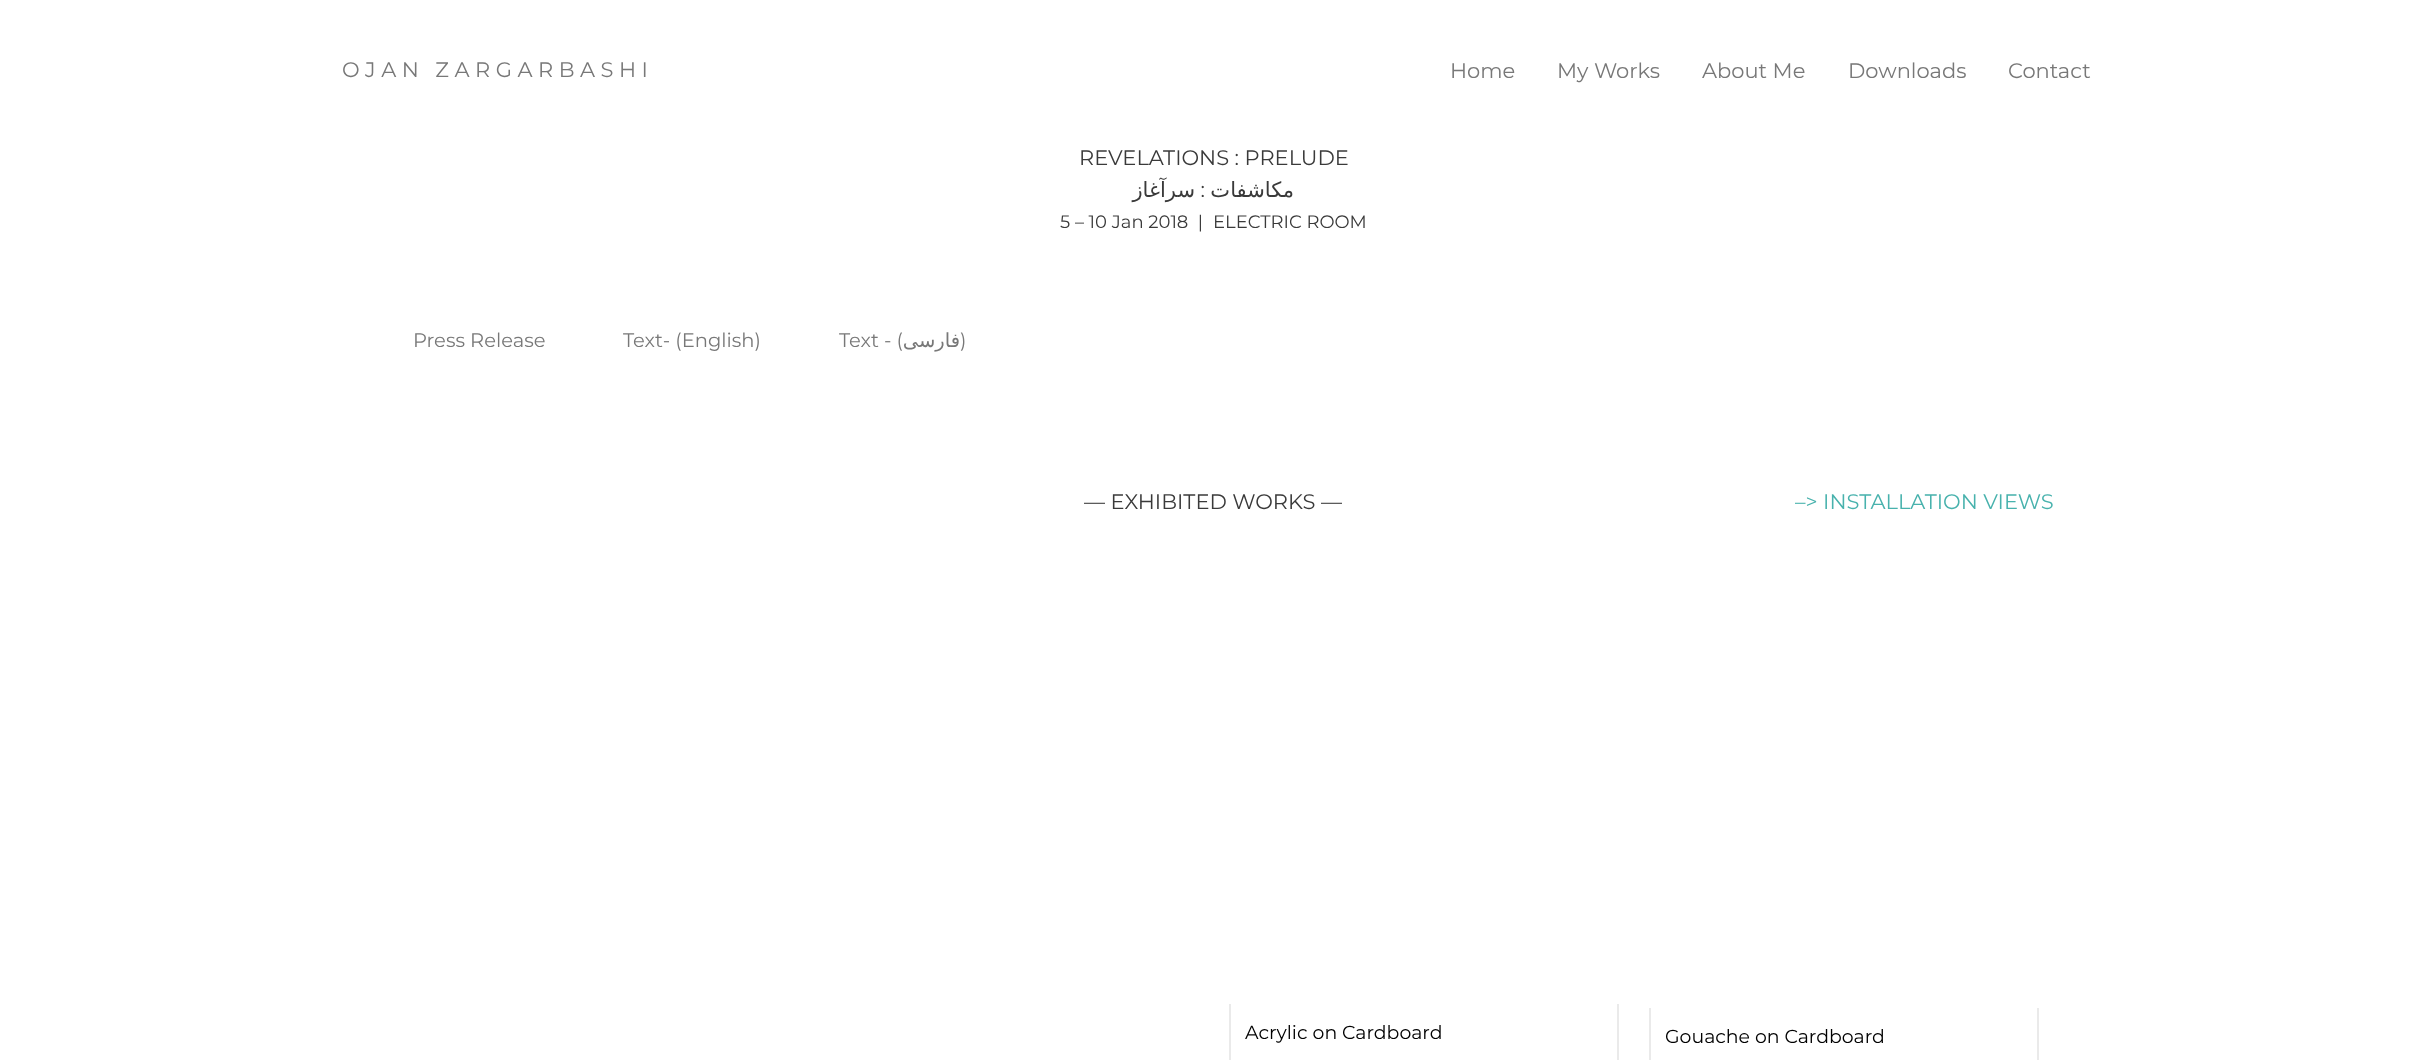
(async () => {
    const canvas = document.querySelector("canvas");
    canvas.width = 2426;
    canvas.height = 1060;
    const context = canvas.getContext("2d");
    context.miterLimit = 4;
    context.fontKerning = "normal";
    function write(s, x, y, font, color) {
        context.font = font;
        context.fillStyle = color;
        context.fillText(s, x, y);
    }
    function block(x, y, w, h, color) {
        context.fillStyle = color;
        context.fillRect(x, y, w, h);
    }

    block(0, 0, 2426, 1060, "rgb(255, 255, 255)");
    write("O J A N   Z A R G A R B A S H I", 342, 77, "21px Montserrat", "rgb(120, 120, 120)");
    write("Home", 1450, 78, "21px Montserrat", "rgb(120, 120, 120)");
    write("My Works", 1557, 78, "21px Montserrat", "rgb(120, 120, 120)");
    write("About Me", 1702, 78, "21px Montserrat", "rgb(120, 120, 120)");
    write("Downloads", 1848, 78, "21px Montserrat", "rgb(120, 120, 120)");
    write("Contact", 2008, 78, "21px Montserrat", "rgb(120, 120, 120)");
    write("REVELATIONS : PRELUDE", 1079, 165, "21px Montserrat", "rgb(58, 58, 58)");
    context.direction = "rtl";
    write("سرآغاز", 1195, 197, "21px DejaVu Sans", "rgb(58, 58, 58)");
    write(":", 1205, 197, "21px Montserrat", "rgb(58, 58, 58)");
    write("مکاشفات", 1294, 197, "21px DejaVu Sans", "rgb(58, 58, 58)");
    context.direction = "ltr";
    write("5 – 10 Jan 2018  |", 1060, 228, "18px Montserrat", "rgb(58, 58, 58)");
    write("ELECTRIC ROOM", 1213, 228, "18px Montserrat", "rgb(58, 58, 58)");
    write("Press Release", 413, 347, "19.5px Montserrat", "rgb(120, 120, 120)");
    write("Text- (English)", 623, 347, "19.5px Montserrat", "rgb(120, 120, 120)");
    write("Text - (", 839, 347, "19.5px Montserrat", "rgb(120, 120, 120)");
    context.direction = "rtl";
    write("فارسی", 960, 347, "19.5px DejaVu Sans", "rgb(120, 120, 120)");
    context.direction = "ltr";
    write(")", 960, 347, "19.5px Montserrat", "rgb(120, 120, 120)");
    write("— EXHIBITED WORKS —", 1084, 509, "21px Montserrat", "rgb(58, 58, 58)");
    write("–> INSTALLATION VIEWS", 1795, 509, "21px Montserrat", "rgb(72, 178, 173)");
    block(1617, 1004, 2, 56, "rgb(234, 234, 234)");
    block(1229, 1004, 2, 56, "rgb(234, 234, 234)");
    write("Acrylic on Cardboard", 1245, 1039, "18.9px Montserrat", "rgb(0, 0, 0)");
    block(2037, 1008, 2, 52, "rgb(234, 234, 234)");
    block(1649, 1008, 2, 52, "rgb(234, 234, 234)");
    write("Gouache on Cardboard", 1665, 1043, "18.9px Montserrat", "rgb(0, 0, 0)");
})();
